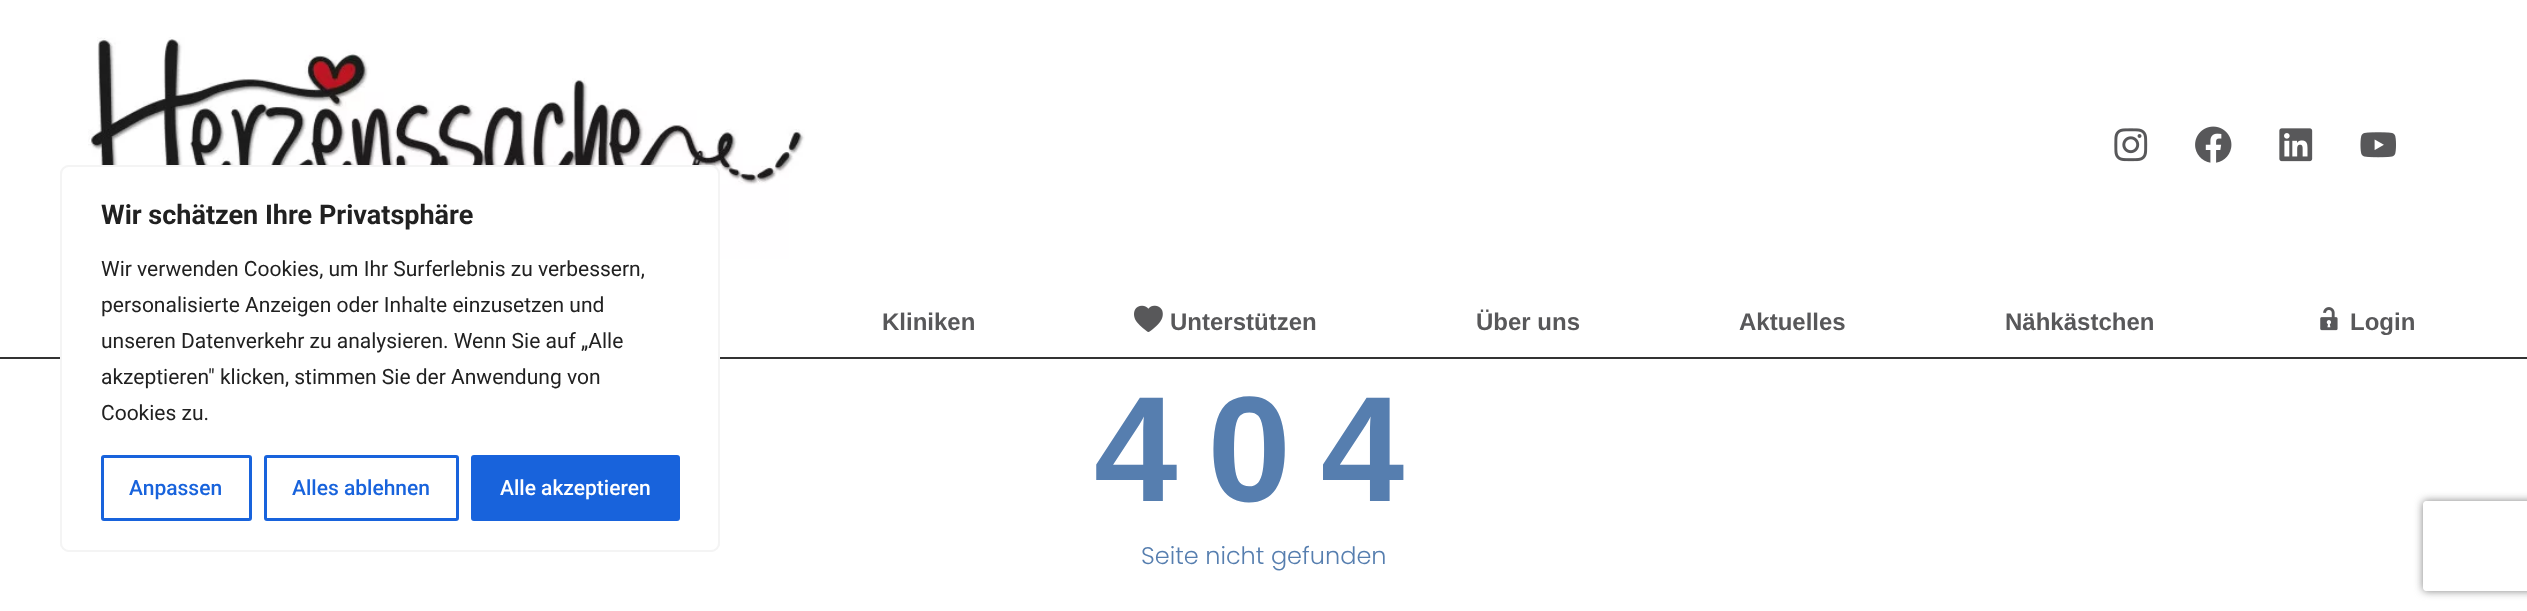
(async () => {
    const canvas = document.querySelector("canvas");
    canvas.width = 2527;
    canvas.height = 611;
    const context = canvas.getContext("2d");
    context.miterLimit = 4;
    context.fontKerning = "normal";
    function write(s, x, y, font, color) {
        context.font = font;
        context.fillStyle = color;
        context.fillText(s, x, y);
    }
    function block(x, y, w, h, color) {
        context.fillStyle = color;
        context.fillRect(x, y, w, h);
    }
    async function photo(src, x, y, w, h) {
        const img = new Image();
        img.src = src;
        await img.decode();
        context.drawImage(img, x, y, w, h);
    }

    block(0, 0, 2527, 611, "rgb(255, 255, 255)");
    await photo("media/1.png", 88, 37, 717, 225);
    block(0, 357, 2527, 2, "rgb(51, 51, 51)");
    context.save();
    context.beginPath();
    context.roundRect(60, 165, 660, 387, 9);
    context.clip();
    context.fillStyle = "rgba(172, 171, 171, 0.3)";
    context.filter = "blur(7.5px)";
    context.beginPath();
    context.roundRect(60, 164, 660, 387, 9);
    context.fill();
    context.filter = "none";
    context.restore();
    context.fillStyle = "rgb(255, 255, 255)";
    context.beginPath();
    context.roundRect(61, 166, 658, 385, 8);
    context.fill();
    context.strokeStyle = "rgb(244, 244, 244)";
    context.lineWidth = 2;
    context.stroke();
    write("Wir schätzen Ihre Privatsphäre", 101, 224, "bold 27px Roboto", "rgb(33, 33, 33)");
    write("Wir verwenden Cookies, um Ihr Surferlebnis zu verbessern,", 101, 276, "21px Roboto", "rgb(33, 33, 33)");
    write("personalisierte Anzeigen oder Inhalte einzusetzen und", 101, 312, "21px Roboto", "rgb(33, 33, 33)");
    write("unseren Datenverkehr zu analysieren. Wenn Sie auf „Alle", 101, 348, "21px Roboto", "rgb(33, 33, 33)");
    write("akzeptieren\" klicken, stimmen Sie der Anwendung von", 101, 384, "21px Roboto", "rgb(33, 33, 33)");
    write("Cookies zu.", 101, 420, "21px Roboto", "rgb(33, 33, 33)");
    context.beginPath();
    context.roundRect(102.5, 456.5, 148, 63, 1.5);
    context.strokeStyle = "rgb(24, 99, 220)";
    context.lineWidth = 3;
    context.stroke();
    write("Anpassen", 129, 495, "500 21px Roboto", "rgb(24, 99, 220)");
    context.beginPath();
    context.roundRect(265.5, 456.5, 192, 63, 1.5);
    context.stroke();
    write("Alles ablehnen", 292, 495, "500 21px Roboto", "rgb(24, 99, 220)");
    context.beginPath();
    context.roundRect(472.5, 456.5, 206, 63, 1.5);
    context.fill();
    context.stroke();
    write("Alle akzeptieren", 500, 495, "500 21px Roboto", "rgb(255, 255, 255)");
    await photo("media/2.png", 2114, 128, 34, 34);
    await photo("media/3.png", 2195, 126, 37, 37);
    await photo("media/4.png", 2279, 128, 34, 34);
    await photo("media/5.png", 2360, 132, 36, 26);
    write("Kliniken", 882, 330, "bold 24px Liberation Sans", "rgb(88, 88, 90)");
    await photo("media/6.png", 1134, 305, 29, 27);
    write("Unterstützen", 1170, 330, "bold 24px Liberation Sans", "rgb(88, 88, 90)");
    write("Über uns", 1476, 330, "bold 24px Liberation Sans", "rgb(88, 88, 90)");
    write("Aktuelles", 1739, 330, "bold 24px Liberation Sans", "rgb(88, 88, 90)");
    write("Nähkästchen", 2005, 330, "bold 24px Liberation Sans", "rgb(88, 88, 90)");
    await photo("media/7.png", 2320, 307, 18, 24);
    write("Login", 2350, 330, "bold 24px Liberation Sans", "rgb(88, 88, 90)");
    context.letterSpacing = "30px";
    write("404", 1094, 501, "bold 150px Liberation Sans", "rgb(86, 126, 175)");
    context.letterSpacing = "0px";
    write("Seite nicht gefunden", 1141, 564, "300 24px Poppins", "rgb(86, 126, 175)");
    context.save();
    context.beginPath();
    context.moveTo(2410, 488);
    context.lineTo(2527, 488);
    context.lineTo(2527, 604);
    context.lineTo(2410, 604);
    context.closePath();
    context.moveTo(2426, 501);
    context.lineTo(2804, 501);
    context.bezierCurveTo(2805.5, 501, 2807, 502.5, 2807, 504);
    context.lineTo(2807, 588);
    context.bezierCurveTo(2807, 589.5, 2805.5, 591, 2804, 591);
    context.lineTo(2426, 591);
    context.bezierCurveTo(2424.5, 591, 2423, 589.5, 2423, 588);
    context.lineTo(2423, 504);
    context.bezierCurveTo(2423, 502.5, 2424.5, 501, 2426, 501);
    context.closePath();
    context.clip("evenodd");
    context.fillStyle = "rgb(128, 128, 128)";
    context.filter = "blur(4px)";
    context.beginPath();
    context.roundRect(2423, 501, 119, 90, 3);
    context.fill();
    context.filter = "none";
    context.restore();
})();
